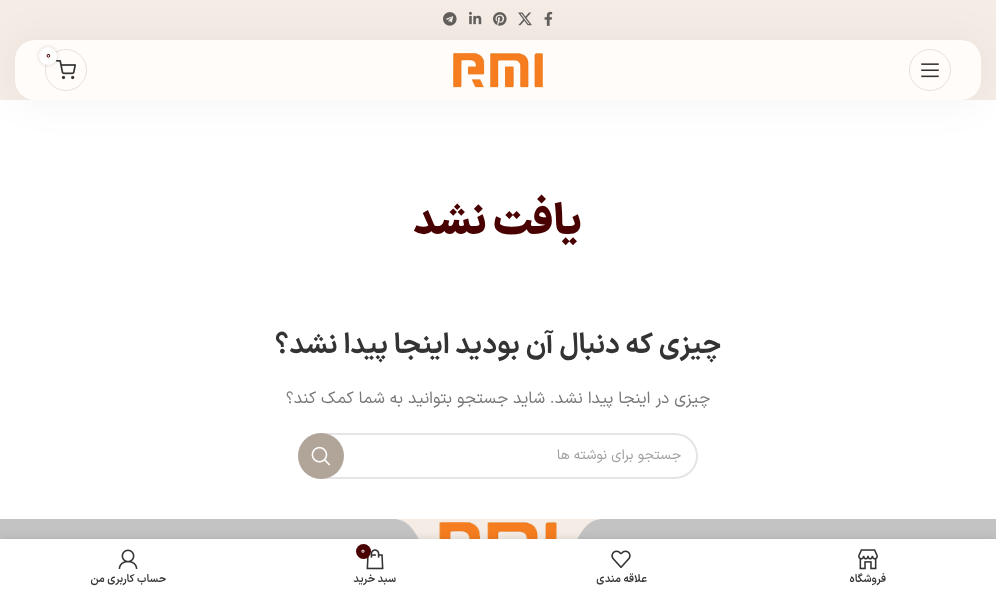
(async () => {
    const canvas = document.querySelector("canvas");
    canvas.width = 996;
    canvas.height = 594;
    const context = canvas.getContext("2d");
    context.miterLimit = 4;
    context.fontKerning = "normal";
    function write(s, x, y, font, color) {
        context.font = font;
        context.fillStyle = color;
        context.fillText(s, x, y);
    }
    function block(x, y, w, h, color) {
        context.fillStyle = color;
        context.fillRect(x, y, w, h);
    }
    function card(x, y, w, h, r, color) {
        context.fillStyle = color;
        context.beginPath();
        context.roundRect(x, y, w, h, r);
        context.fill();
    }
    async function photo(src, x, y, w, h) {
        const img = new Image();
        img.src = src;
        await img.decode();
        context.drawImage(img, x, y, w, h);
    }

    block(0, 0, 996, 594, "rgb(255, 255, 255)");
    block(0, 0, 996, 100, "rgb(244, 236, 229)");
    context.fillStyle = "rgba(0, 0, 0, 0.05)";
    context.filter = "blur(20px)";
    context.beginPath();
    context.roundRect(15, 40, 966, 60, 20);
    context.fill();
    context.filter = "none";
    await photo("media/1.png", 544, 11, 9, 15);
    await photo("media/2.png", 518, 12, 14, 14);
    await photo("media/3.png", 493, 12, 14, 14);
    await photo("media/4.png", 469, 11, 13, 14);
    await photo("media/5.png", 443, 12, 14, 14);
    card(15, 40, 966, 60, 20, "rgb(255, 252, 249)");
    context.beginPath();
    context.arc(930, 70, 20.5, 0, Math.PI * 2);
    context.strokeStyle = "rgb(228, 225, 223)";
    context.stroke();
    await photo("media/6.png", 921, 63, 18, 15);
    await photo("media/7.png", 453, 53, 90, 35);
    context.beginPath();
    context.arc(66, 70, 20.5, 0, Math.PI * 2);
    context.stroke();
    await photo("media/8.png", 56, 60, 20, 20);
    context.fillStyle = "rgba(0, 0, 0, 0.17)";
    context.filter = "blur(2px)";
    context.beginPath();
    context.roundRect(39, 47, 18, 18, 9);
    context.fill();
    context.filter = "none";
    context.fillStyle = "rgb(255, 255, 255)";
    context.beginPath();
    context.arc(48, 56, 9, 0, Math.PI * 2);
    context.fill();
    write("0", 46, 58, "11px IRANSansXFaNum", "rgb(73, 0, 0)");
    context.direction = "rtl";
    write("یافت نشد", 582, 234, "900 42px IRANSansXFaNum", "rgb(73, 0, 0)");
    write("چیزی که دنبال آن بودید اینجا پیدا نشد؟", 721, 353, "bold 28px IRANSansXFaNum", "rgb(51, 51, 51)");
    write("چیزی در اینجا پیدا نشد. شاید جستجو بتوانید به شما کمک کند؟", 710, 403, "16.5px IRANSansXFaNum", "rgb(119, 119, 119)");
    context.beginPath();
    context.roundRect(299, 434, 398, 44, 22);
    context.strokeStyle = "rgb(229, 229, 229)";
    context.lineWidth = 2;
    context.stroke();
    write("جستجو برای نوشته ها", 681, 459, "14px IRANSansXFaNum", "rgb(160, 160, 160)");
    context.fillStyle = "rgb(177, 165, 154)";
    context.beginPath();
    context.arc(321, 456, 23, 0, Math.PI * 2);
    context.fill();
    await photo("media/9.png", 311, 446, 20, 20);
    block(0, 519, 996, 20, "rgb(195, 195, 195)");
    await photo("media/10.png", 395, 519, 206, 20);
    context.fillStyle = "rgba(0, 0, 0, 0.12)";
    context.filter = "blur(4.5px)";
    context.beginPath();
    context.rect(0, 539, 996, 55);
    context.fill();
    context.filter = "none";
    block(0, 539, 996, 55, "rgb(255, 255, 255)");
    await photo("media/11.png", 858, 549, 20, 21);
    write("فروشگاه", 886, 582, "600 11px IRANSansXFaNum", "rgb(51, 51, 51)");
    await photo("media/12.png", 611, 550, 20, 18);
    write("علاقه مندی", 647, 582, "600 11px IRANSansXFaNum", "rgb(51, 51, 51)");
    await photo("media/13.png", 366, 549, 18, 21);
    context.fillStyle = "rgb(73, 0, 0)";
    context.beginPath();
    context.arc(363.5, 551.5, 7.5, 0, Math.PI * 2);
    context.fill();
    context.direction = "ltr";
    write("0", 361, 553, "9px IRANSansXFaNum", "rgb(255, 255, 255)");
    context.direction = "rtl";
    write("سبد خرید", 396, 582, "600 11px IRANSansXFaNum", "rgb(51, 51, 51)");
    await photo("media/14.png", 118, 549, 20, 20);
    write("حساب کاربری من", 166, 582, "600 11px IRANSansXFaNum", "rgb(51, 51, 51)");
})();
